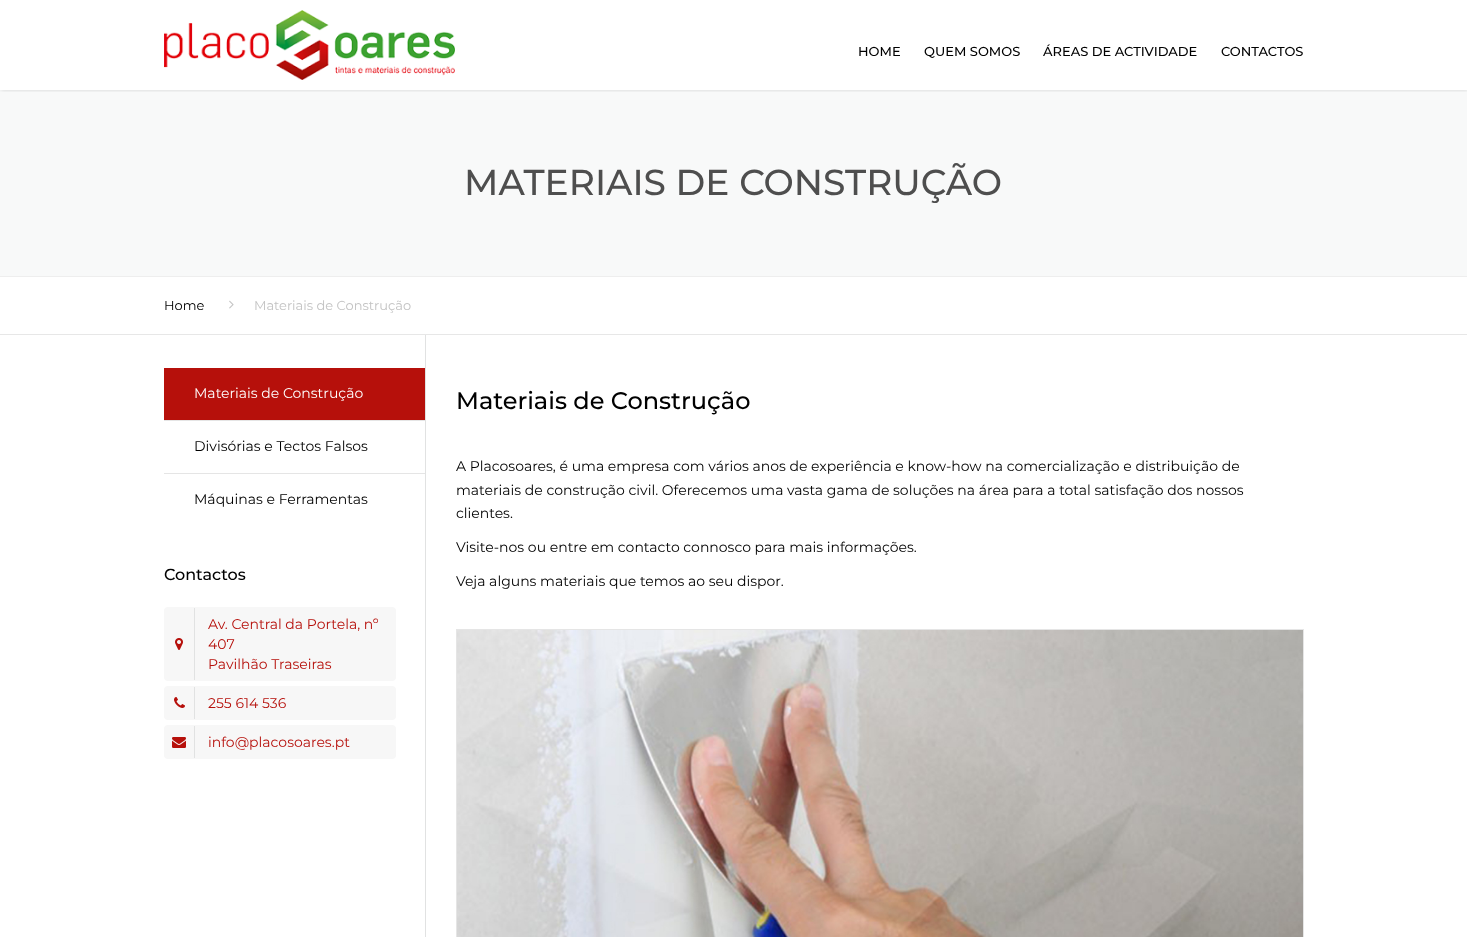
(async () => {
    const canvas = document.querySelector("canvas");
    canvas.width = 1467;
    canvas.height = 937;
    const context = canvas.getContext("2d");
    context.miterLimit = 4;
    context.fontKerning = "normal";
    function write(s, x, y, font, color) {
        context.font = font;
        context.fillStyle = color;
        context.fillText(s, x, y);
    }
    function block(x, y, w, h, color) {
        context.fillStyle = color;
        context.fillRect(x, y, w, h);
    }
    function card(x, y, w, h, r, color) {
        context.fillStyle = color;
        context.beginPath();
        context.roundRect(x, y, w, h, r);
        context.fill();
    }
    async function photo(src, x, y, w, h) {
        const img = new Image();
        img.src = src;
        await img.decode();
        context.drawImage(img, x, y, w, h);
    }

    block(0, 0, 1467, 937, "rgb(255, 255, 255)");
    block(0, 90, 1467, 186, "rgb(248, 249, 249)");
    context.save();
    context.beginPath();
    context.rect(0, 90, 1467, 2);
    context.clip();
    context.fillStyle = "rgba(0, 0, 0, 0.15)";
    context.filter = "blur(2px)";
    context.beginPath();
    context.rect(1, 0, 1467, 90);
    context.fill();
    context.filter = "none";
    context.restore();
    await photo("media/1.png", 164, 10, 291, 70);
    write("HOME", 858, 56, "500 13px Montserrat", "rgb(0, 0, 0)");
    write("QUEM SOMOS", 924, 56, "500 13px Montserrat", "rgb(0, 0, 0)");
    write("ÁREAS DE ACTIVIDADE", 1043, 56, "500 13px Montserrat", "rgb(0, 0, 0)");
    write("CONTACTOS", 1221, 56, "500 13px Montserrat", "rgb(0, 0, 0)");
    block(0, 276, 1467, 1, "rgb(238, 238, 238)");
    write("MATERIAIS DE CONSTRUÇÃO", 464, 195, "500 36px Montserrat", "rgb(78, 78, 78)");
    block(0, 334, 1467, 1, "rgb(231, 231, 231)");
    write("Home", 164, 310, "13px Montserrat", "rgb(0, 0, 0)");
    await photo("media/2.png", 229, 300, 5, 9);
    write("Materiais de Construção", 254, 310, "13px Montserrat", "rgb(195, 195, 195)");
    block(164, 368, 261, 52, "rgb(182, 16, 11)");
    block(164, 420, 262, 1, "rgb(229, 229, 229)");
    write("Materiais de Construção", 194, 398, "14px Montserrat", "rgb(255, 255, 255)");
    block(164, 473, 262, 1, "rgb(229, 229, 229)");
    write("Divisórias e Tectos Falsos", 194, 451, "14px Montserrat", "rgb(0, 0, 0)");
    write("Máquinas e Ferramentas", 194, 504, "14px Montserrat", "rgb(0, 0, 0)");
    write("Contactos", 164, 580, "500 16px Montserrat", "rgb(0, 0, 0)");
    card(164, 607, 232, 74, 4, "rgb(247, 247, 247)");
    block(194, 608, 1, 72, "rgb(225, 226, 226)");
    write("Av. Central da Portela, nº", 208, 629, "14px Montserrat", "rgb(182, 16, 11)");
    await photo("media/3.png", 175, 638, 8, 12);
    write("407", 208, 649, "14px Montserrat", "rgb(182, 16, 11)");
    write("Pavilhão Traseiras", 208, 669, "14px Montserrat", "rgb(182, 16, 11)");
    card(164, 686, 232, 34, 4, "rgb(247, 247, 247)");
    await photo("media/4.png", 174, 697, 11, 11);
    block(194, 687, 1, 32, "rgb(225, 226, 226)");
    write("255 614 536", 208, 708, "14px Montserrat", "rgb(182, 16, 11)");
    card(164, 725, 232, 34, 4, "rgb(247, 247, 247)");
    await photo("media/5.png", 172, 737, 14, 11);
    block(194, 726, 1, 32, "rgb(225, 226, 226)");
    write("info@placosoares.pt", 208, 747, "14px Montserrat", "rgb(182, 16, 11)");
    block(425, 335, 1, 602, "rgb(225, 226, 226)");
    write("Materiais de Construção", 456, 409, "500 24px Montserrat", "rgb(0, 0, 0)");
    write("A Placosoares, é uma empresa com vários anos de experiência e know-how na comercialização e distribuição de", 456, 471, "14px Montserrat", "rgb(0, 0, 0)");
    write("materiais de construção civil. Oferecemos uma vasta gama de soluções na área para a total satisfação dos nossos", 456, 495, "14px Montserrat", "rgb(0, 0, 0)");
    write("clientes.", 456, 518, "14px Montserrat", "rgb(0, 0, 0)");
    write("Visite-nos ou entre em contacto connosco para mais informações.", 456, 552, "14px Montserrat", "rgb(0, 0, 0)");
    write("Veja alguns materiais que temos ao seu dispor.", 456, 586, "14px Montserrat", "rgb(0, 0, 0)");
    context.strokeStyle = "rgb(229, 229, 229)";
    context.strokeRect(456.5, 629.5, 847, 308);
    await photo("media/6.png", 457, 630, 846, 307);
})();
